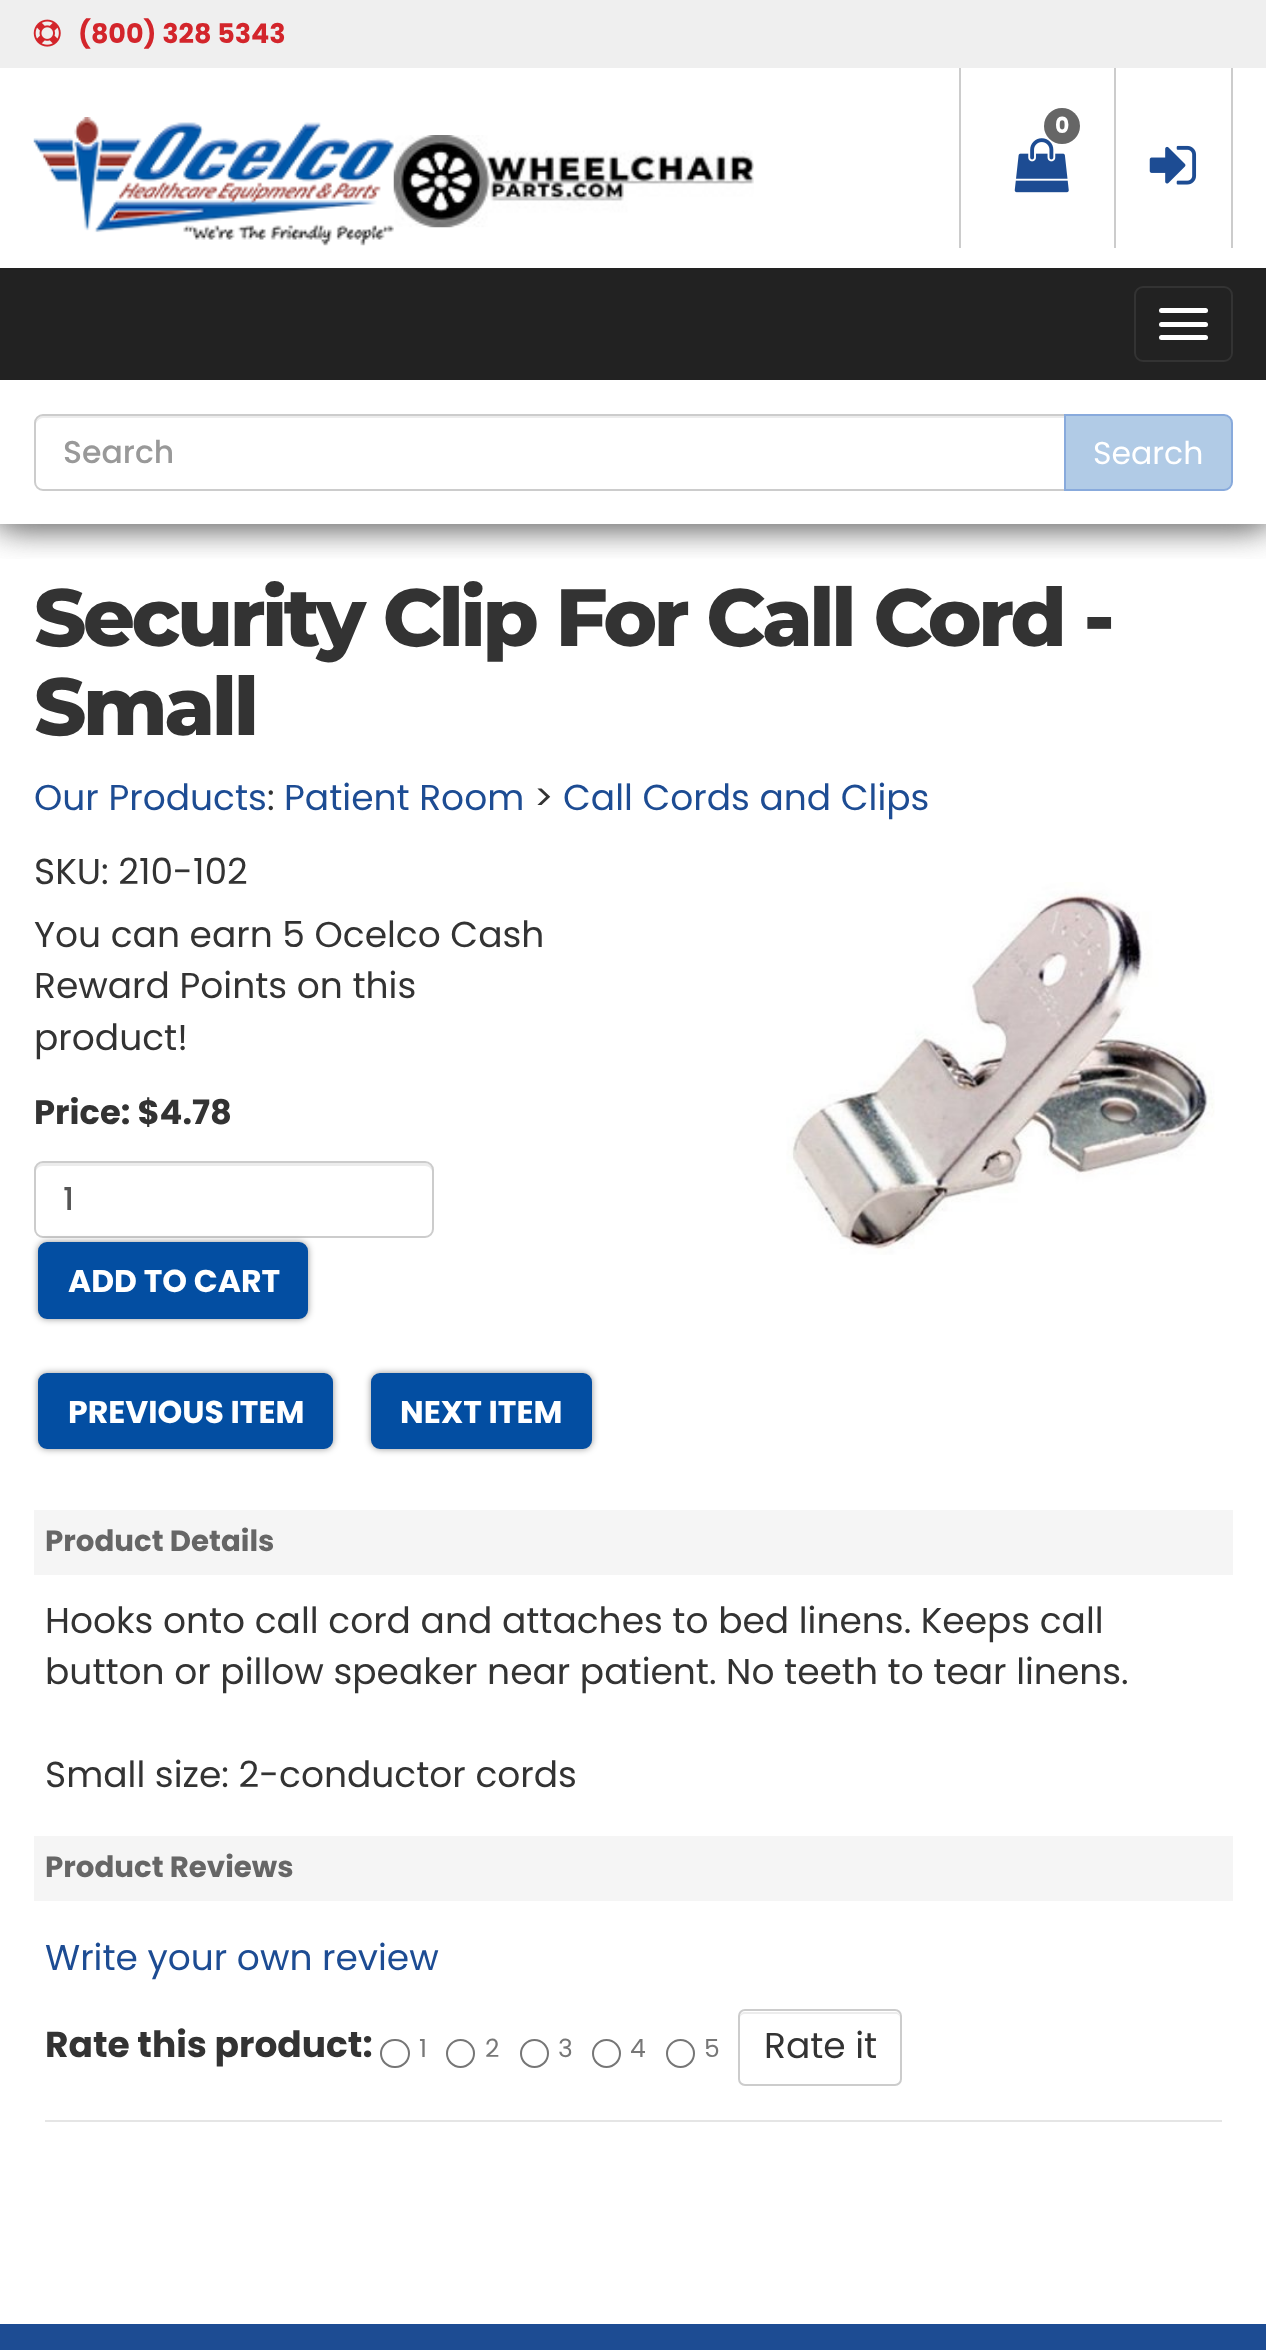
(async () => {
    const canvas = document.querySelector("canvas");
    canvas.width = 1266;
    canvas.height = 2350;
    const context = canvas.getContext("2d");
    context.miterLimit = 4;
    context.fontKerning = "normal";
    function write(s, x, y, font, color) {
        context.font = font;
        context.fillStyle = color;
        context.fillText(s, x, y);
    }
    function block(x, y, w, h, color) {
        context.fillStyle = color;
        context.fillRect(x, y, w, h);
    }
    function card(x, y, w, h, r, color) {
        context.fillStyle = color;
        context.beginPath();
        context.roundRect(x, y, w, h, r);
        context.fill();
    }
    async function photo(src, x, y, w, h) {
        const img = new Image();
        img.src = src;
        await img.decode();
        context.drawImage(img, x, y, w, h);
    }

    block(0, 0, 1266, 2350, "rgb(255, 255, 255)");
    context.save();
    context.beginPath();
    context.rect(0, 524, 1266, 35);
    context.clip();
    context.fillStyle = "rgb(119, 119, 119)";
    context.filter = "blur(17px)";
    context.beginPath();
    context.rect(5, 0, 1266, 524);
    context.fill();
    context.filter = "none";
    context.filter = "blur(17px)";
    context.beginPath();
    context.rect(-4, 0, 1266, 524);
    context.fill();
    context.filter = "none";
    context.restore();
    block(0, 0, 1266, 68, "rgb(239, 239, 239)");
    await photo("media/1.png", 33, 19, 28, 28);
    write("(800) 328 5343", 78, 43, "bold 27px Poppins", "rgb(211, 37, 43)");
    await photo("media/2.png", 33, 117, 361, 129);
    await photo("media/3.png", 393, 135, 361, 93);
    block(1114, 68, 2, 180, "rgb(204, 204, 204)");
    block(959, 68, 2, 180, "rgb(204, 204, 204)");
    await photo("media/4.png", 1014, 138, 55, 55);
    context.fillStyle = "rgb(102, 102, 102)";
    context.beginPath();
    context.arc(1062, 126, 18, 0, Math.PI * 2);
    context.fill();
    write("0", 1055, 133, "bold 22px Poppins", "rgb(255, 255, 255)");
    block(1231, 68, 2, 180, "rgb(204, 204, 204)");
    await photo("media/5.png", 1149, 145, 48, 40);
    block(0, 268, 1266, 112, "rgb(34, 34, 34)");
    context.beginPath();
    context.roundRect(1135, 287, 97, 74, 8);
    context.strokeStyle = "rgb(51, 51, 51)";
    context.lineWidth = 2;
    context.stroke();
    card(1159, 308, 49, 5, 2.5, "rgb(255, 255, 255)");
    card(1159, 322, 49, 5, 2.5, "rgb(255, 255, 255)");
    card(1159, 335, 49, 5, 2.5, "rgb(255, 255, 255)");
    context.fillStyle = "rgb(236, 236, 236)";
    context.beginPath();
    context.moveTo(43, 418);
    context.lineTo(1064, 418);
    context.lineTo(1064, 416);
    context.lineTo(43, 416);
    context.bezierCurveTo(38, 416, 36, 421, 36, 425);
    context.bezierCurveTo(36, 422, 39, 418, 43, 418);
    context.closePath();
    context.fill();
    context.beginPath();
    context.roundRect(35, 415, 1031, 75, [8, 0, 0, 8]);
    context.strokeStyle = "rgb(204, 204, 204)";
    context.stroke();
    write("Search", 63, 463, "500 31.5px Poppins", "rgb(153, 153, 153)");
    context.fillStyle = "rgb(177, 203, 230)";
    context.beginPath();
    context.roundRect(1065, 415, 167, 75, [0, 8, 8, 0]);
    context.fill();
    context.strokeStyle = "rgb(136, 170, 220)";
    context.stroke();
    write("Search", 1093, 464, "31.5px Poppins", "rgb(255, 255, 255)");
    context.letterSpacing = "-3.4px";
    write("Security Clip For Call Cord -", 34, 646, "800 81px Montserrat", "rgb(51, 51, 51)");
    write("Small", 34, 735, "800 81px Montserrat", "rgb(51, 51, 51)");
    context.letterSpacing = "0px";
    write("Our Products", 34, 810, "36px Poppins", "rgb(29, 76, 147)");
    write(":", 267, 810, "36px Poppins", "rgb(51, 51, 51)");
    write("Patient Room", 284, 810, "36px Poppins", "rgb(29, 76, 147)");
    write(">", 534, 810, "36px Poppins", "rgb(51, 51, 51)");
    write("Call Cords and Clips", 563, 810, "36px Poppins", "rgb(29, 76, 147)");
    write("SKU: 210-102", 34, 884, "36px Poppins", "rgb(51, 51, 51)");
    write("You can earn 5 Ocelco Cash", 34, 947, "36px Poppins", "rgb(51, 51, 51)");
    write("Reward Points on this", 34, 998, "36px Poppins", "rgb(51, 51, 51)");
    write("product!", 34, 1050, "36px Poppins", "rgb(51, 51, 51)");
    write("Price: $4.78", 34, 1124, "bold 33.75px Poppins", "rgb(51, 51, 51)");
    context.fillStyle = "rgb(236, 236, 236)";
    context.beginPath();
    context.moveTo(43, 1166);
    context.lineTo(425, 1166);
    context.bezierCurveTo(429, 1166, 432, 1169, 432, 1172);
    context.lineTo(432, 1170);
    context.bezierCurveTo(432, 1166, 429, 1163, 425, 1163);
    context.lineTo(43, 1163);
    context.bezierCurveTo(39, 1163, 36, 1166, 36, 1170);
    context.lineTo(36, 1172);
    context.bezierCurveTo(36, 1169, 39, 1166, 43, 1166);
    context.closePath();
    context.fill();
    context.beginPath();
    context.roundRect(35, 1162, 398, 75, 8);
    context.strokeStyle = "rgb(204, 204, 204)";
    context.stroke();
    write("1", 63, 1210, "500 31.5px Poppins", "rgb(85, 85, 85)");
    context.fillStyle = "rgba(0, 0, 0, 0.42)";
    context.filter = "blur(3.5px)";
    context.beginPath();
    context.roundRect(38, 1242, 270, 77, 9);
    context.fill();
    context.filter = "none";
    context.fillStyle = "rgb(3, 78, 162)";
    context.beginPath();
    context.roundRect(39, 1243, 268, 75, 8);
    context.fill();
    context.strokeStyle = "rgb(3, 78, 162)";
    context.stroke();
    write("ADD TO CART", 68, 1292, "bold 31.5px Poppins", "rgb(255, 255, 255)");
    await photo("media/6.png", 786, 882, 429, 373);
    context.fillStyle = "rgba(0, 0, 0, 0.42)";
    context.filter = "blur(3.5px)";
    context.beginPath();
    context.roundRect(38, 1373, 295, 76, 9);
    context.fill();
    context.filter = "none";
    context.fillStyle = "rgb(3, 78, 162)";
    context.beginPath();
    context.roundRect(39, 1374, 293, 74, 8);
    context.fill();
    context.stroke();
    write("PREVIOUS ITEM", 68, 1423, "bold 31.5px Poppins", "rgb(255, 255, 255)");
    context.fillStyle = "rgba(0, 0, 0, 0.42)";
    context.filter = "blur(3.5px)";
    context.beginPath();
    context.roundRect(371, 1373, 221, 76, 9);
    context.fill();
    context.filter = "none";
    context.fillStyle = "rgb(3, 78, 162)";
    context.beginPath();
    context.roundRect(372, 1374, 219, 74, 8);
    context.fill();
    context.stroke();
    write("NEXT ITEM", 400, 1423, "bold 31.5px Poppins", "rgb(255, 255, 255)");
    block(34, 1510, 1199, 65, "rgb(245, 245, 245)");
    write("Product Details", 45, 1551, "bold 29.25px Poppins", "rgb(102, 102, 102)");
    write("Hooks onto call cord and attaches to bed linens. Keeps call", 45, 1633, "36px Poppins", "rgb(51, 51, 51)");
    write("button or pillow speaker near patient. No teeth to tear linens.", 45, 1684, "36px Poppins", "rgb(51, 51, 51)");
    write("Small size: 2-conductor cords", 45, 1787, "36px Poppins", "rgb(51, 51, 51)");
    block(34, 1836, 1199, 65, "rgb(245, 245, 245)");
    write("Product Reviews", 45, 1877, "bold 29.25px Poppins", "rgb(102, 102, 102)");
    write("Write your own review", 45, 1970, "36px Poppins", "rgb(29, 76, 147)");
    write("Rate this product:", 45, 2057, "bold 36px Poppins", "rgb(51, 51, 51)");
    context.beginPath();
    context.roundRect(381, 2040, 28, 27, 13.5);
    context.strokeStyle = "rgb(118, 118, 118)";
    context.stroke();
    write("1", 419, 2057, "25px Poppins", "rgb(119, 119, 119)");
    context.beginPath();
    context.arc(460.5, 2053.5, 13.5, 0, Math.PI * 2);
    context.stroke();
    write("2", 485, 2057, "25px Poppins", "rgb(119, 119, 119)");
    context.beginPath();
    context.arc(534.5, 2053.5, 13.5, 0, Math.PI * 2);
    context.stroke();
    write("3", 558, 2057, "25px Poppins", "rgb(119, 119, 119)");
    context.beginPath();
    context.arc(606.5, 2053.5, 13.5, 0, Math.PI * 2);
    context.stroke();
    write("4", 630, 2057, "25px Poppins", "rgb(119, 119, 119)");
    context.beginPath();
    context.arc(680.5, 2053.5, 13.5, 0, Math.PI * 2);
    context.stroke();
    write("5", 704, 2057, "25px Poppins", "rgb(119, 119, 119)");
    context.fillStyle = "rgb(236, 236, 236)";
    context.beginPath();
    context.moveTo(745, 2014);
    context.lineTo(896, 2014);
    context.bezierCurveTo(898, 2014, 900, 2016, 900, 2018);
    context.lineTo(900, 2017);
    context.bezierCurveTo(900, 2014, 898, 2012, 895, 2012);
    context.lineTo(745, 2012);
    context.bezierCurveTo(742, 2012, 740, 2014, 740, 2017);
    context.lineTo(740, 2018);
    context.bezierCurveTo(740, 2016, 742, 2014, 745, 2014);
    context.closePath();
    context.fill();
    context.beginPath();
    context.roundRect(739, 2010, 162, 75, 6);
    context.strokeStyle = "rgb(204, 204, 204)";
    context.stroke();
    write("Rate it", 764, 2058, "36px Poppins", "rgb(51, 51, 51)");
    block(45, 2120, 1177, 2, "rgb(229, 229, 229)");
    block(0, 2324, 1266, 26, "rgb(29, 76, 147)");
})();
